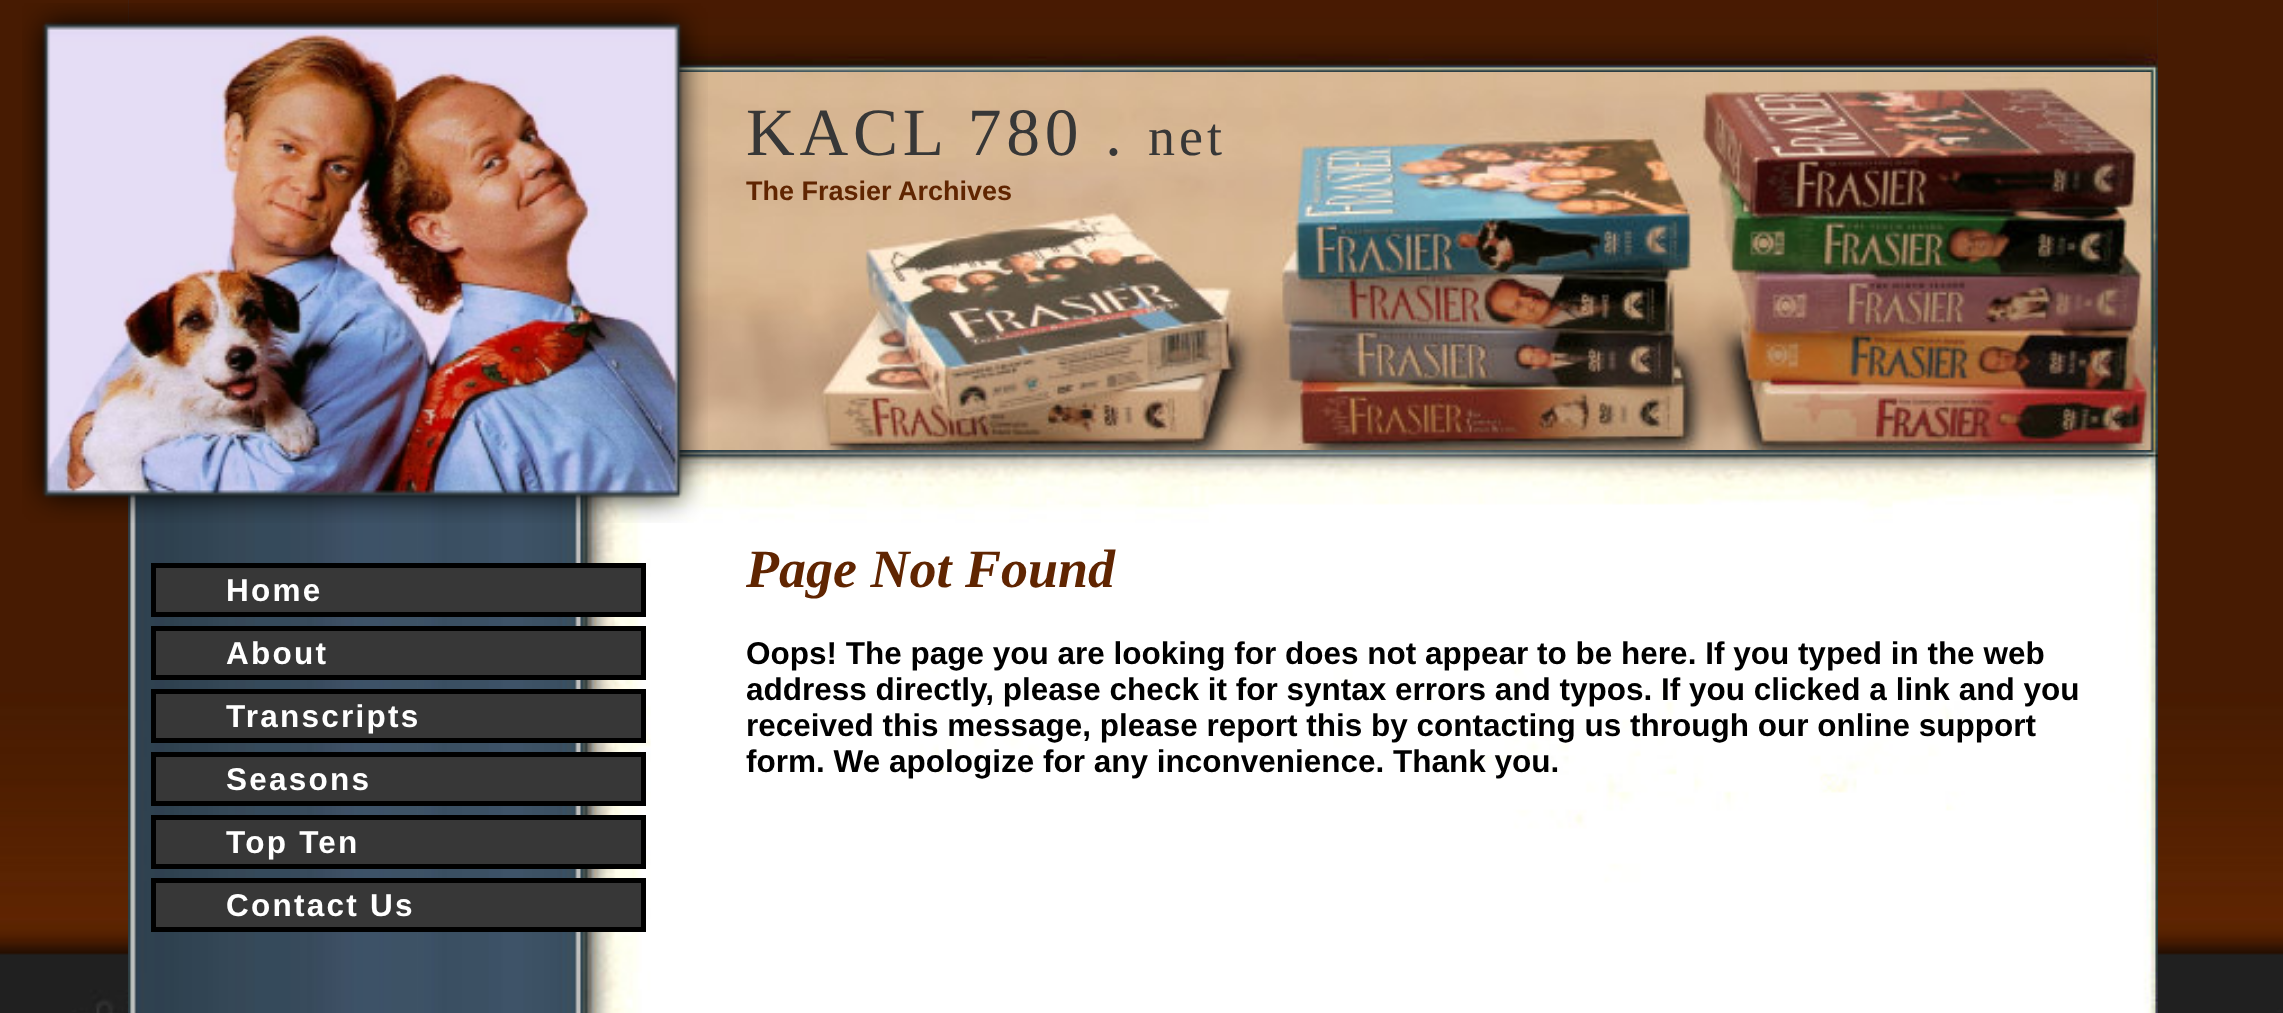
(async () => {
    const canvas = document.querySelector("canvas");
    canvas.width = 2283;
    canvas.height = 1013;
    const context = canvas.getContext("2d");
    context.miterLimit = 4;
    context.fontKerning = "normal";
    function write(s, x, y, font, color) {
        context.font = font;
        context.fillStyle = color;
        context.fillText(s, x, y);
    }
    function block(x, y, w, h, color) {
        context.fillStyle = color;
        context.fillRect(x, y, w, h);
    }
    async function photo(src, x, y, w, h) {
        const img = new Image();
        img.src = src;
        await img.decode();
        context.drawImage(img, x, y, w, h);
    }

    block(0, 0, 2283, 1013, "rgb(255, 255, 255)");
    await photo("media/1.png", 0, 0, 2283, 1013);
    await photo("media/2.png", 128, 0, 2030, 1013);
    await photo("media/3.png", 128, 0, 2030, 72);
    await photo("media/4.png", 679, 72, 1479, 378);
    await photo("media/5.png", 128, 450, 2030, 563);
    await photo("media/6.png", 22, 3, 686, 520);
    context.letterSpacing = "4.75px";
    write("KACL 780 .", 746, 155, "67.5px Liberation Serif", "rgb(55, 55, 55)");
    context.letterSpacing = "4px";
    write("net", 1148, 155, "54px Liberation Serif", "rgb(55, 55, 55)");
    context.letterSpacing = "0px";
    write("The Frasier Archives", 746, 200, "bold 27px Liberation Sans", "rgb(96, 37, 1)");
    context.fillStyle = "rgb(55, 55, 55)";
    context.beginPath();
    context.rect(153.5, 565.5, 490, 49);
    context.fill();
    context.strokeStyle = "rgb(0, 0, 0)";
    context.lineWidth = 5;
    context.stroke();
    context.letterSpacing = "2.25px";
    write("Home", 226, 601, "bold 31.5px Liberation Sans", "rgb(255, 255, 255)");
    context.fillStyle = "rgb(55, 55, 55)";
    context.beginPath();
    context.rect(153.5, 628.5, 490, 49);
    context.fill();
    context.stroke();
    write("About", 226, 664, "bold 31.5px Liberation Sans", "rgb(255, 255, 255)");
    context.fillStyle = "rgb(55, 55, 55)";
    context.beginPath();
    context.rect(153.5, 691.5, 490, 49);
    context.fill();
    context.stroke();
    write("Transcripts", 226, 727, "bold 31.5px Liberation Sans", "rgb(255, 255, 255)");
    context.fillStyle = "rgb(55, 55, 55)";
    context.beginPath();
    context.rect(153.5, 754.5, 490, 49);
    context.fill();
    context.stroke();
    write("Seasons", 226, 790, "bold 31.5px Liberation Sans", "rgb(255, 255, 255)");
    context.fillStyle = "rgb(55, 55, 55)";
    context.beginPath();
    context.rect(153.5, 817.5, 490, 49);
    context.fill();
    context.stroke();
    write("Top Ten", 226, 853, "bold 31.5px Liberation Sans", "rgb(255, 255, 255)");
    context.fillStyle = "rgb(55, 55, 55)";
    context.beginPath();
    context.rect(153.5, 880.5, 490, 49);
    context.fill();
    context.stroke();
    write("Contact Us", 226, 916, "bold 31.5px Liberation Sans", "rgb(255, 255, 255)");
    context.letterSpacing = "0px";
    write("Page Not Found", 746, 587, "italic bold 54px Liberation Serif", "rgb(96, 37, 1)");
    write("Oops! The page you are looking for does not appear to be here. If you typed in the web", 746, 664, "bold 31.5px Liberation Sans", "rgb(0, 0, 0)");
    write("address directly, please check it for syntax errors and typos. If you clicked a link and you", 746, 700, "bold 31.5px Liberation Sans", "rgb(0, 0, 0)");
    write("received this message, please report this by contacting us through our online support", 746, 736, "bold 31.5px Liberation Sans", "rgb(0, 0, 0)");
    write("form. We apologize for any inconvenience. Thank you.", 746, 772, "bold 31.5px Liberation Sans", "rgb(0, 0, 0)");
})();
